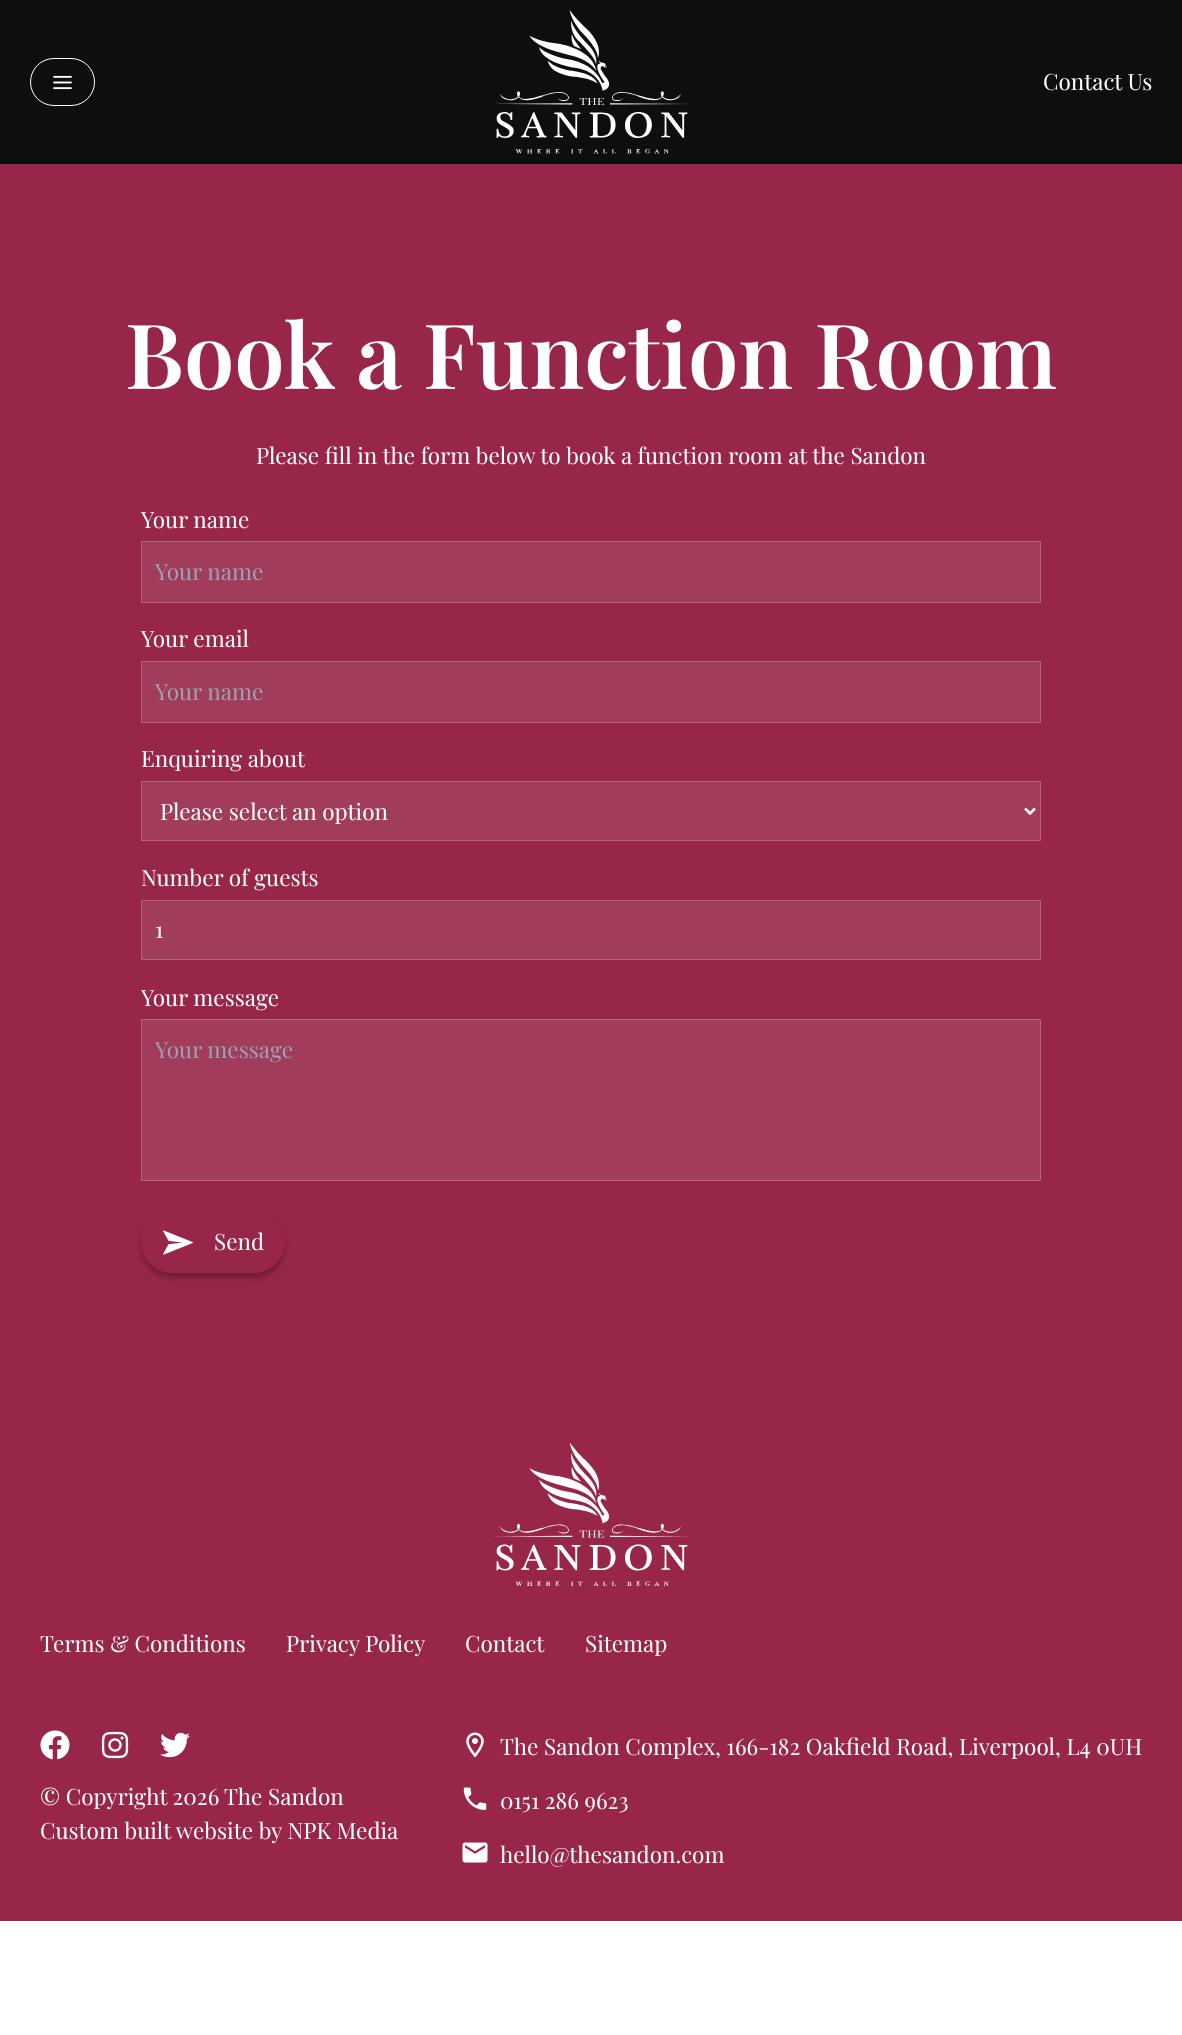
(async () => {
    const canvas = document.querySelector("canvas");
    canvas.width = 1182;
    canvas.height = 2035;
    const context = canvas.getContext("2d");
    context.miterLimit = 4;
    context.fontKerning = "normal";
    function write(s, x, y, font, color) {
        context.font = font;
        context.fillStyle = color;
        context.fillText(s, x, y);
    }
    function block(x, y, w, h, color) {
        context.fillStyle = color;
        context.fillRect(x, y, w, h);
    }
    async function photo(src, x, y, w, h) {
        const img = new Image();
        img.src = src;
        await img.decode();
        context.drawImage(img, x, y, w, h);
    }

    block(0, 0, 1182, 2035, "rgb(255, 255, 255)");
    block(0, 0, 1182, 164, "rgb(14, 14, 14)");
    context.beginPath();
    context.roundRect(30.5, 58.5, 64, 47, 23.5);
    context.strokeStyle = "rgb(255, 255, 255)";
    context.stroke();
    await photo("media/1.png", 53, 75, 19, 15);
    await photo("media/2.png", 493, 10, 195, 144);
    write("Contact Us", 1043, 90, "22.5px Playfair Display", "rgb(255, 255, 255)");
    block(0, 164, 1182, 1757, "rgb(152, 38, 73)");
    write("Book a Function Room", 125, 389, "600 90px Playfair Display", "rgb(255, 255, 255)");
    write("Please fill in the form below to book a function room at the Sandon", 256, 464, "22.5px Playfair Display", "rgb(255, 255, 255)");
    write("Your name", 141, 528, "22.5px Playfair Display", "rgb(255, 255, 255)");
    context.fillStyle = "rgb(162, 60, 91)";
    context.beginPath();
    context.rect(141.5, 541.5, 899, 61);
    context.fill();
    context.strokeStyle = "rgb(181, 99, 124)";
    context.stroke();
    write("Your name", 155, 580, "22.5px Playfair Display", "rgb(156, 163, 175)");
    write("Your email", 141, 647, "22.5px Playfair Display", "rgb(255, 255, 255)");
    context.fillStyle = "rgb(162, 60, 91)";
    context.beginPath();
    context.rect(141.5, 661.5, 899, 61);
    context.fill();
    context.stroke();
    write("Your name", 155, 700, "22.5px Playfair Display", "rgb(156, 163, 175)");
    write("Enquiring about", 141, 767, "22.5px Playfair Display", "rgb(255, 255, 255)");
    context.fillStyle = "rgb(162, 60, 91)";
    context.beginPath();
    context.rect(141.5, 781.5, 899, 59);
    context.fill();
    context.stroke();
    context.beginPath();
    context.moveTo(1025, 808.5);
    context.lineTo(1030, 813.5);
    context.lineTo(1035, 808.5);
    context.strokeStyle = "rgb(255, 255, 255)";
    context.lineWidth = 2.5;
    context.stroke();
    write("Please select an option", 160, 820, "22.5px Playfair Display", "rgb(255, 255, 255)");
    write("Number of guests", 141, 886, "22.5px Playfair Display", "rgb(255, 255, 255)");
    context.fillStyle = "rgb(162, 60, 91)";
    context.beginPath();
    context.rect(141.5, 900.5, 899, 59);
    context.fill();
    context.strokeStyle = "rgb(181, 99, 124)";
    context.lineWidth = 1;
    context.stroke();
    write("1", 155, 938, "22.5px Playfair Display", "rgb(255, 255, 255)");
    write("Your message", 141, 1006, "22.5px Playfair Display", "rgb(255, 255, 255)");
    context.fillStyle = "rgb(162, 60, 91)";
    context.beginPath();
    context.rect(141.5, 1019.5, 899, 161);
    context.fill();
    context.stroke();
    write("Your message", 155, 1058, "22.5px Playfair Display", "rgb(156, 163, 175)");
    context.fillStyle = "rgba(0, 0, 0, 0.25)";
    context.filter = "blur(2.5px)";
    context.beginPath();
    context.roundRect(141, 1216, 144, 62, 31);
    context.fill();
    context.filter = "none";
    context.fillStyle = "rgb(152, 38, 73)";
    context.beginPath();
    context.roundRect(141.5, 1211.5, 143, 61, 30.5);
    context.fill();
    context.strokeStyle = "rgb(152, 38, 73)";
    context.stroke();
    await photo("media/3.png", 163, 1230, 30, 25);
    write("Send", 214, 1250, "22.5px Playfair Display", "rgb(255, 255, 255)");
    await photo("media/4.png", 493, 1443, 196, 143);
    write("Terms & Conditions", 40, 1652, "22.5px Playfair Display", "rgb(255, 255, 255)");
    write("Privacy Policy", 286, 1652, "22.5px Playfair Display", "rgb(255, 255, 255)");
    write("Contact", 465, 1652, "22.5px Playfair Display", "rgb(255, 255, 255)");
    write("Sitemap", 585, 1652, "22.5px Playfair Display", "rgb(255, 255, 255)");
    await photo("media/5.png", 40, 1730, 30, 30);
    await photo("media/6.png", 101, 1731, 28, 28);
    await photo("media/7.png", 160, 1732, 30, 26);
    write("© Copyright 2026", 40, 1805, "22.5px Playfair Display", "rgb(255, 255, 255)");
    write("The Sandon", 224, 1805, "22.5px Playfair Display", "rgb(255, 255, 255)");
    write("Custom built website by NPK Media", 40, 1839, "22.5px Playfair Display", "rgb(255, 255, 255)");
    await photo("media/8.png", 466, 1732, 18, 26);
    write("The Sandon Complex, 166-182 Oakfield Road, Liverpool, L4 0UH", 500, 1755, "22.5px Playfair Display", "rgb(255, 255, 255)");
    await photo("media/9.png", 463, 1787, 24, 23);
    write("0151 286 9623", 500, 1809, "22.5px Playfair Display", "rgb(255, 255, 255)");
    await photo("media/10.png", 462, 1842, 26, 21);
    write("hello@thesandon.com", 500, 1863, "22.5px Playfair Display", "rgb(255, 255, 255)");
})();
